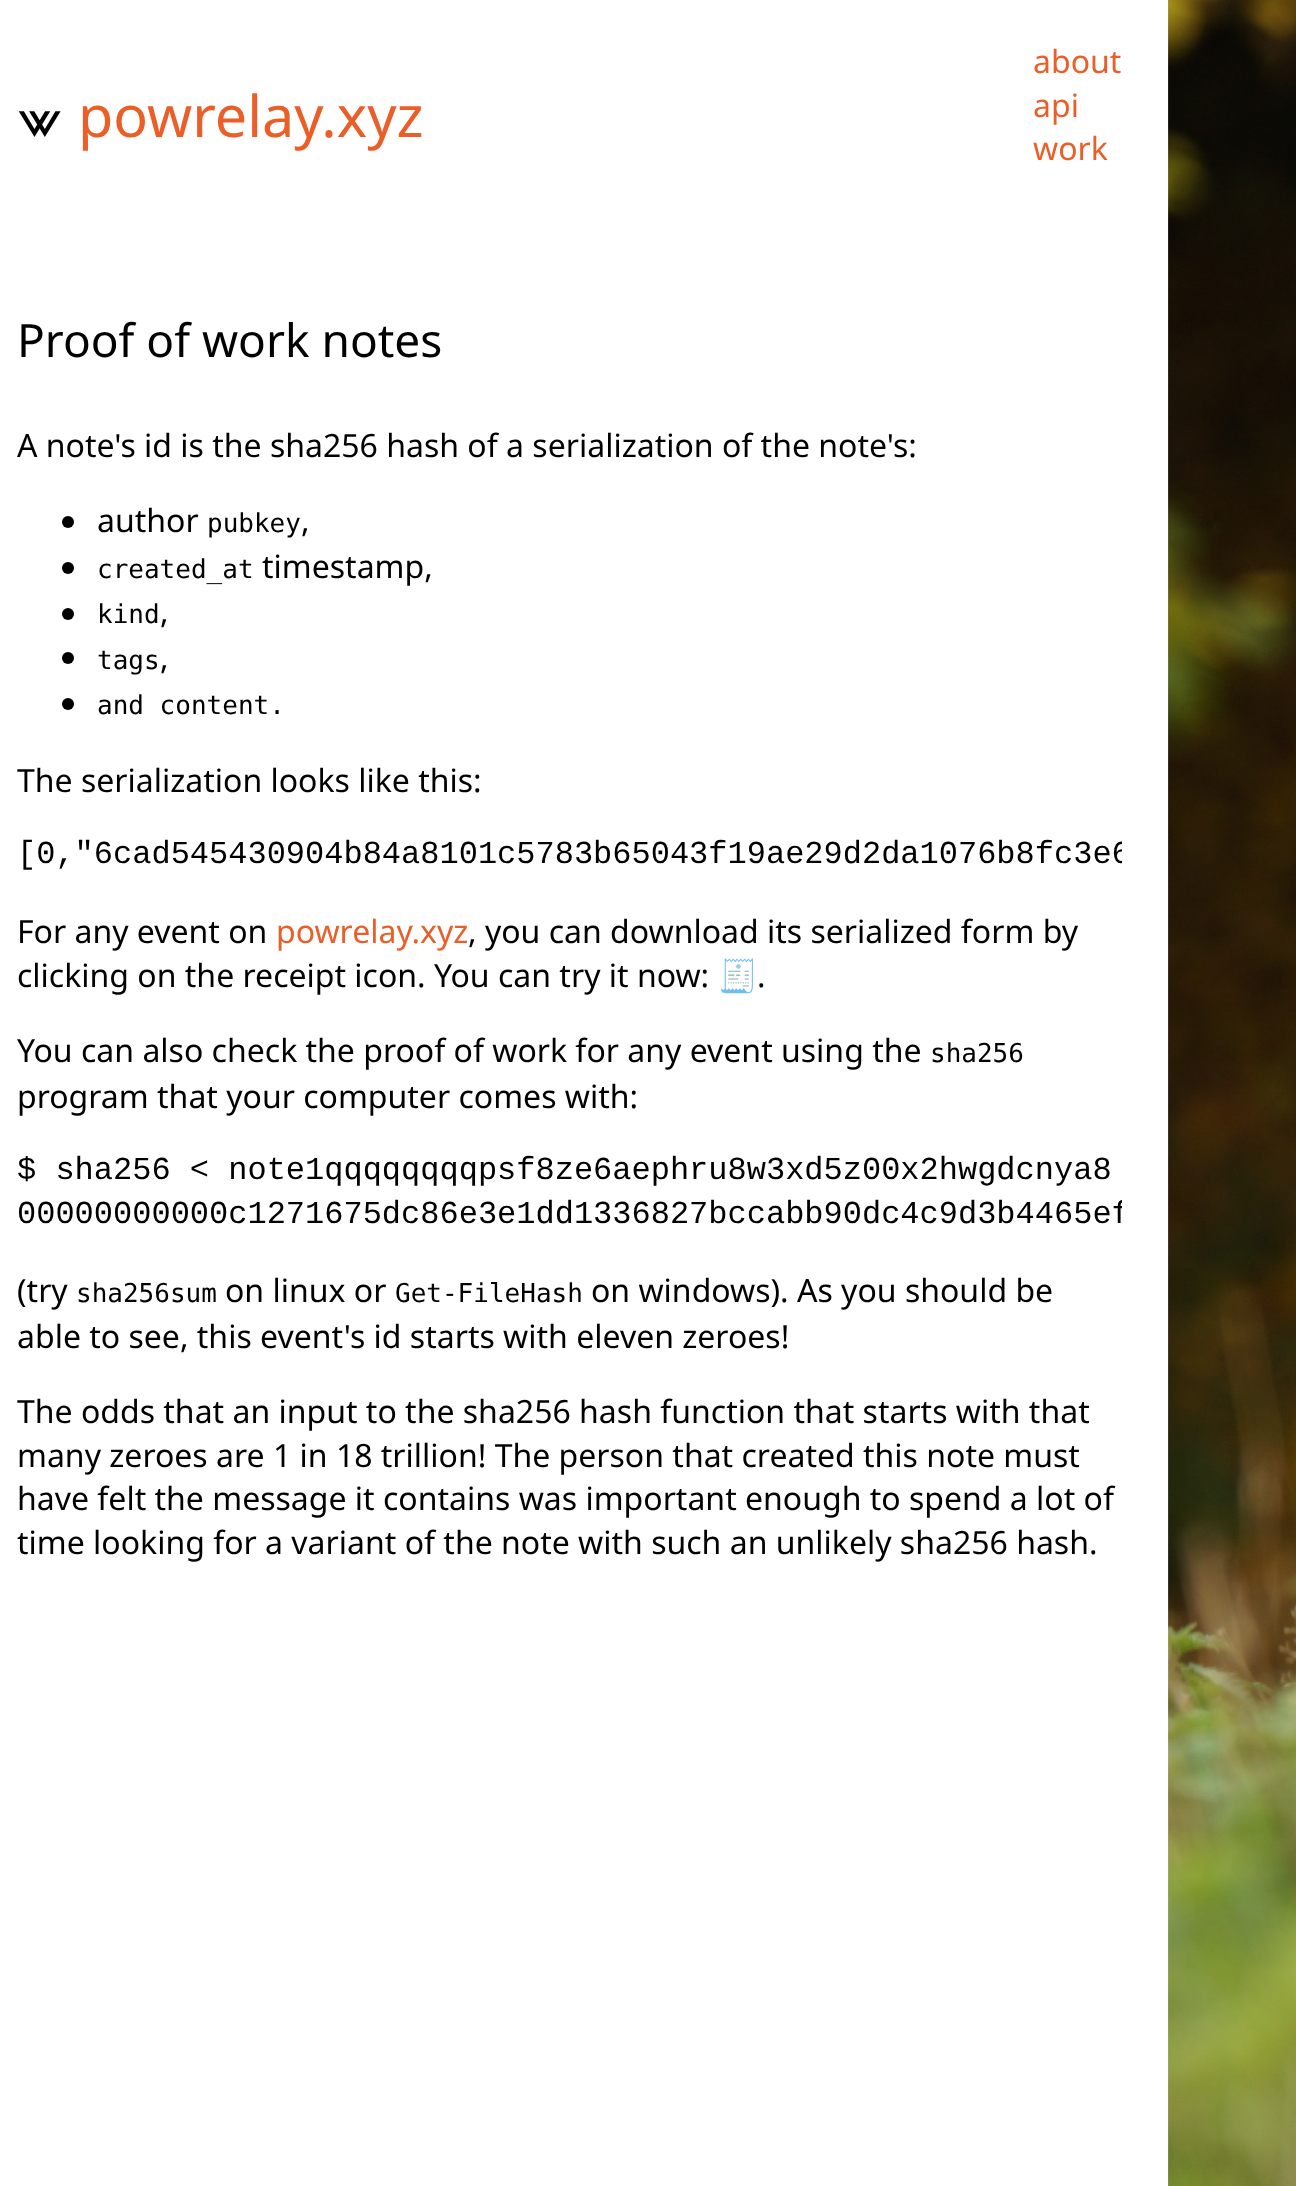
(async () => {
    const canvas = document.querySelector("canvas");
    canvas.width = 1296;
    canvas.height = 2186;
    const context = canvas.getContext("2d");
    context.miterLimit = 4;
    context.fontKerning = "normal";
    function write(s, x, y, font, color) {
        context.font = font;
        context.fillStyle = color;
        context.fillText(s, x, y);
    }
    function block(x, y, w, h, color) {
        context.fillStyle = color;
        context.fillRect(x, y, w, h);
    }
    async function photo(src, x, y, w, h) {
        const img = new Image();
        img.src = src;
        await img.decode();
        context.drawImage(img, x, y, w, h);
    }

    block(0, 0, 1296, 2186, "rgb(255, 255, 255)");
    await photo("media/1.png", 1168, 0, 128, 2186);
    write("⩖", 17, 137, "57.5px FreeSans", "rgb(0, 0, 0)");
    write("powrelay.xyz", 78, 137, "57.5px Noto Sans", "rgb(235, 94, 40)");
    write("about", 1033, 73, "32px Noto Sans", "rgb(235, 94, 40)");
    write("api", 1033, 117, "32px Noto Sans", "rgb(235, 94, 40)");
    write("work", 1033, 160, "32px Noto Sans", "rgb(235, 94, 40)");
    write("Proof of work notes", 17, 357, "46px Noto Sans", "rgb(0, 0, 0)");
    write("A note's id is the sha256 hash of a serialization of the note's:", 17, 457, "32px Noto Sans", "rgb(0, 0, 0)");
    context.beginPath();
    context.arc(68, 522, 6, 0, Math.PI * 2);
    context.fill();
    write("author", 97, 532, "32px Noto Sans", "rgb(0, 0, 0)");
    write("pubkey", 207, 532, "26px DejaVu Sans Mono", "rgb(0, 0, 0)");
    write(",", 301, 532, "32px Noto Sans", "rgb(0, 0, 0)");
    context.beginPath();
    context.arc(68, 568, 6, 0, Math.PI * 2);
    context.fill();
    write("created_at", 97, 578, "26px DejaVu Sans Mono", "rgb(0, 0, 0)");
    write("timestamp,", 262, 578, "32px Noto Sans", "rgb(0, 0, 0)");
    context.beginPath();
    context.arc(68, 614, 6, 0, Math.PI * 2);
    context.fill();
    write("kind", 97, 623, "26px DejaVu Sans Mono", "rgb(0, 0, 0)");
    write(",", 160, 623, "32px Noto Sans", "rgb(0, 0, 0)");
    context.beginPath();
    context.arc(68, 658, 6, 0, Math.PI * 2);
    context.fill();
    write("tags", 97, 669, "26px DejaVu Sans Mono", "rgb(0, 0, 0)");
    write(",", 160, 669, "32px Noto Sans", "rgb(0, 0, 0)");
    context.beginPath();
    context.arc(68, 704, 6, 0, Math.PI * 2);
    context.fill();
    write("and content.", 97, 714, "26px DejaVu Sans Mono", "rgb(0, 0, 0)");
    write("The serialization looks like this:", 17, 792, "32px Noto Sans", "rgb(0, 0, 0)");
    context.save();
    context.beginPath();
    context.rect(18, 836, 1104, 42);
    context.clip();
    write("[0,\"6cad545430904b84a8101c5783b65043f19ae29d2da1076b8fc3e6", 17, 863, "32px Liberation Mono", "rgb(0, 0, 0)");
    context.restore();
    write("For any event on", 17, 943, "32px Noto Sans", "rgb(0, 0, 0)");
    write("powrelay.xyz", 276, 943, "32px Noto Sans", "rgb(235, 94, 40)");
    write(", you can download its serialized form by", 468, 943, "32px Noto Sans", "rgb(0, 0, 0)");
    write("clicking on the receipt icon. You can try it now:", 17, 987, "32px Noto Sans", "rgb(0, 0, 0)");
    write("🧾", 718, 987, "32px Noto Color Emoji", "rgb(235, 94, 40)");
    write(".", 757, 987, "32px Noto Sans", "rgb(0, 0, 0)");
    write("You can also check the proof of work for any event using the", 17, 1062, "32px Noto Sans", "rgb(0, 0, 0)");
    write("sha256", 930, 1062, "26px DejaVu Sans Mono", "rgb(0, 0, 0)");
    write("program that your computer comes with:", 17, 1108, "32px Noto Sans", "rgb(0, 0, 0)");
    write("$ sha256 < note1qqqqqqqqpsf8ze6aephru8w3xd5z00x2hwgdcnya8", 17, 1179, "32px Liberation Mono", "rgb(0, 0, 0)");
    context.save();
    context.beginPath();
    context.rect(18, 1152, 1104, 86);
    context.clip();
    write("00000000000c1271675dc86e3e1dd1336827bccabb90dc4c9d3b4465ef", 17, 1223, "32px Liberation Mono", "rgb(0, 0, 0)");
    context.restore();
    write("(try", 17, 1302, "32px Noto Sans", "rgb(0, 0, 0)");
    write("sha256sum", 76, 1302, "26px DejaVu Sans Mono", "rgb(0, 0, 0)");
    write("on linux or", 225, 1302, "32px Noto Sans", "rgb(0, 0, 0)");
    write("Get-FileHash", 395, 1302, "26px DejaVu Sans Mono", "rgb(0, 0, 0)");
    write("on windows). As you should be", 591, 1302, "32px Noto Sans", "rgb(0, 0, 0)");
    write("able to see, this event's id starts with eleven zeroes!", 17, 1348, "32px Noto Sans", "rgb(0, 0, 0)");
    write("The odds that an input to the sha256 hash function that starts with that", 17, 1423, "32px Noto Sans", "rgb(0, 0, 0)");
    write("many zeroes are 1 in 18 trillion! The person that created this note must", 17, 1467, "32px Noto Sans", "rgb(0, 0, 0)");
    write("have felt the message it contains was important enough to spend a lot of", 17, 1510, "32px Noto Sans", "rgb(0, 0, 0)");
    write("time looking for a variant of the note with such an unlikely sha256 hash.", 17, 1554, "32px Noto Sans", "rgb(0, 0, 0)");
})();
